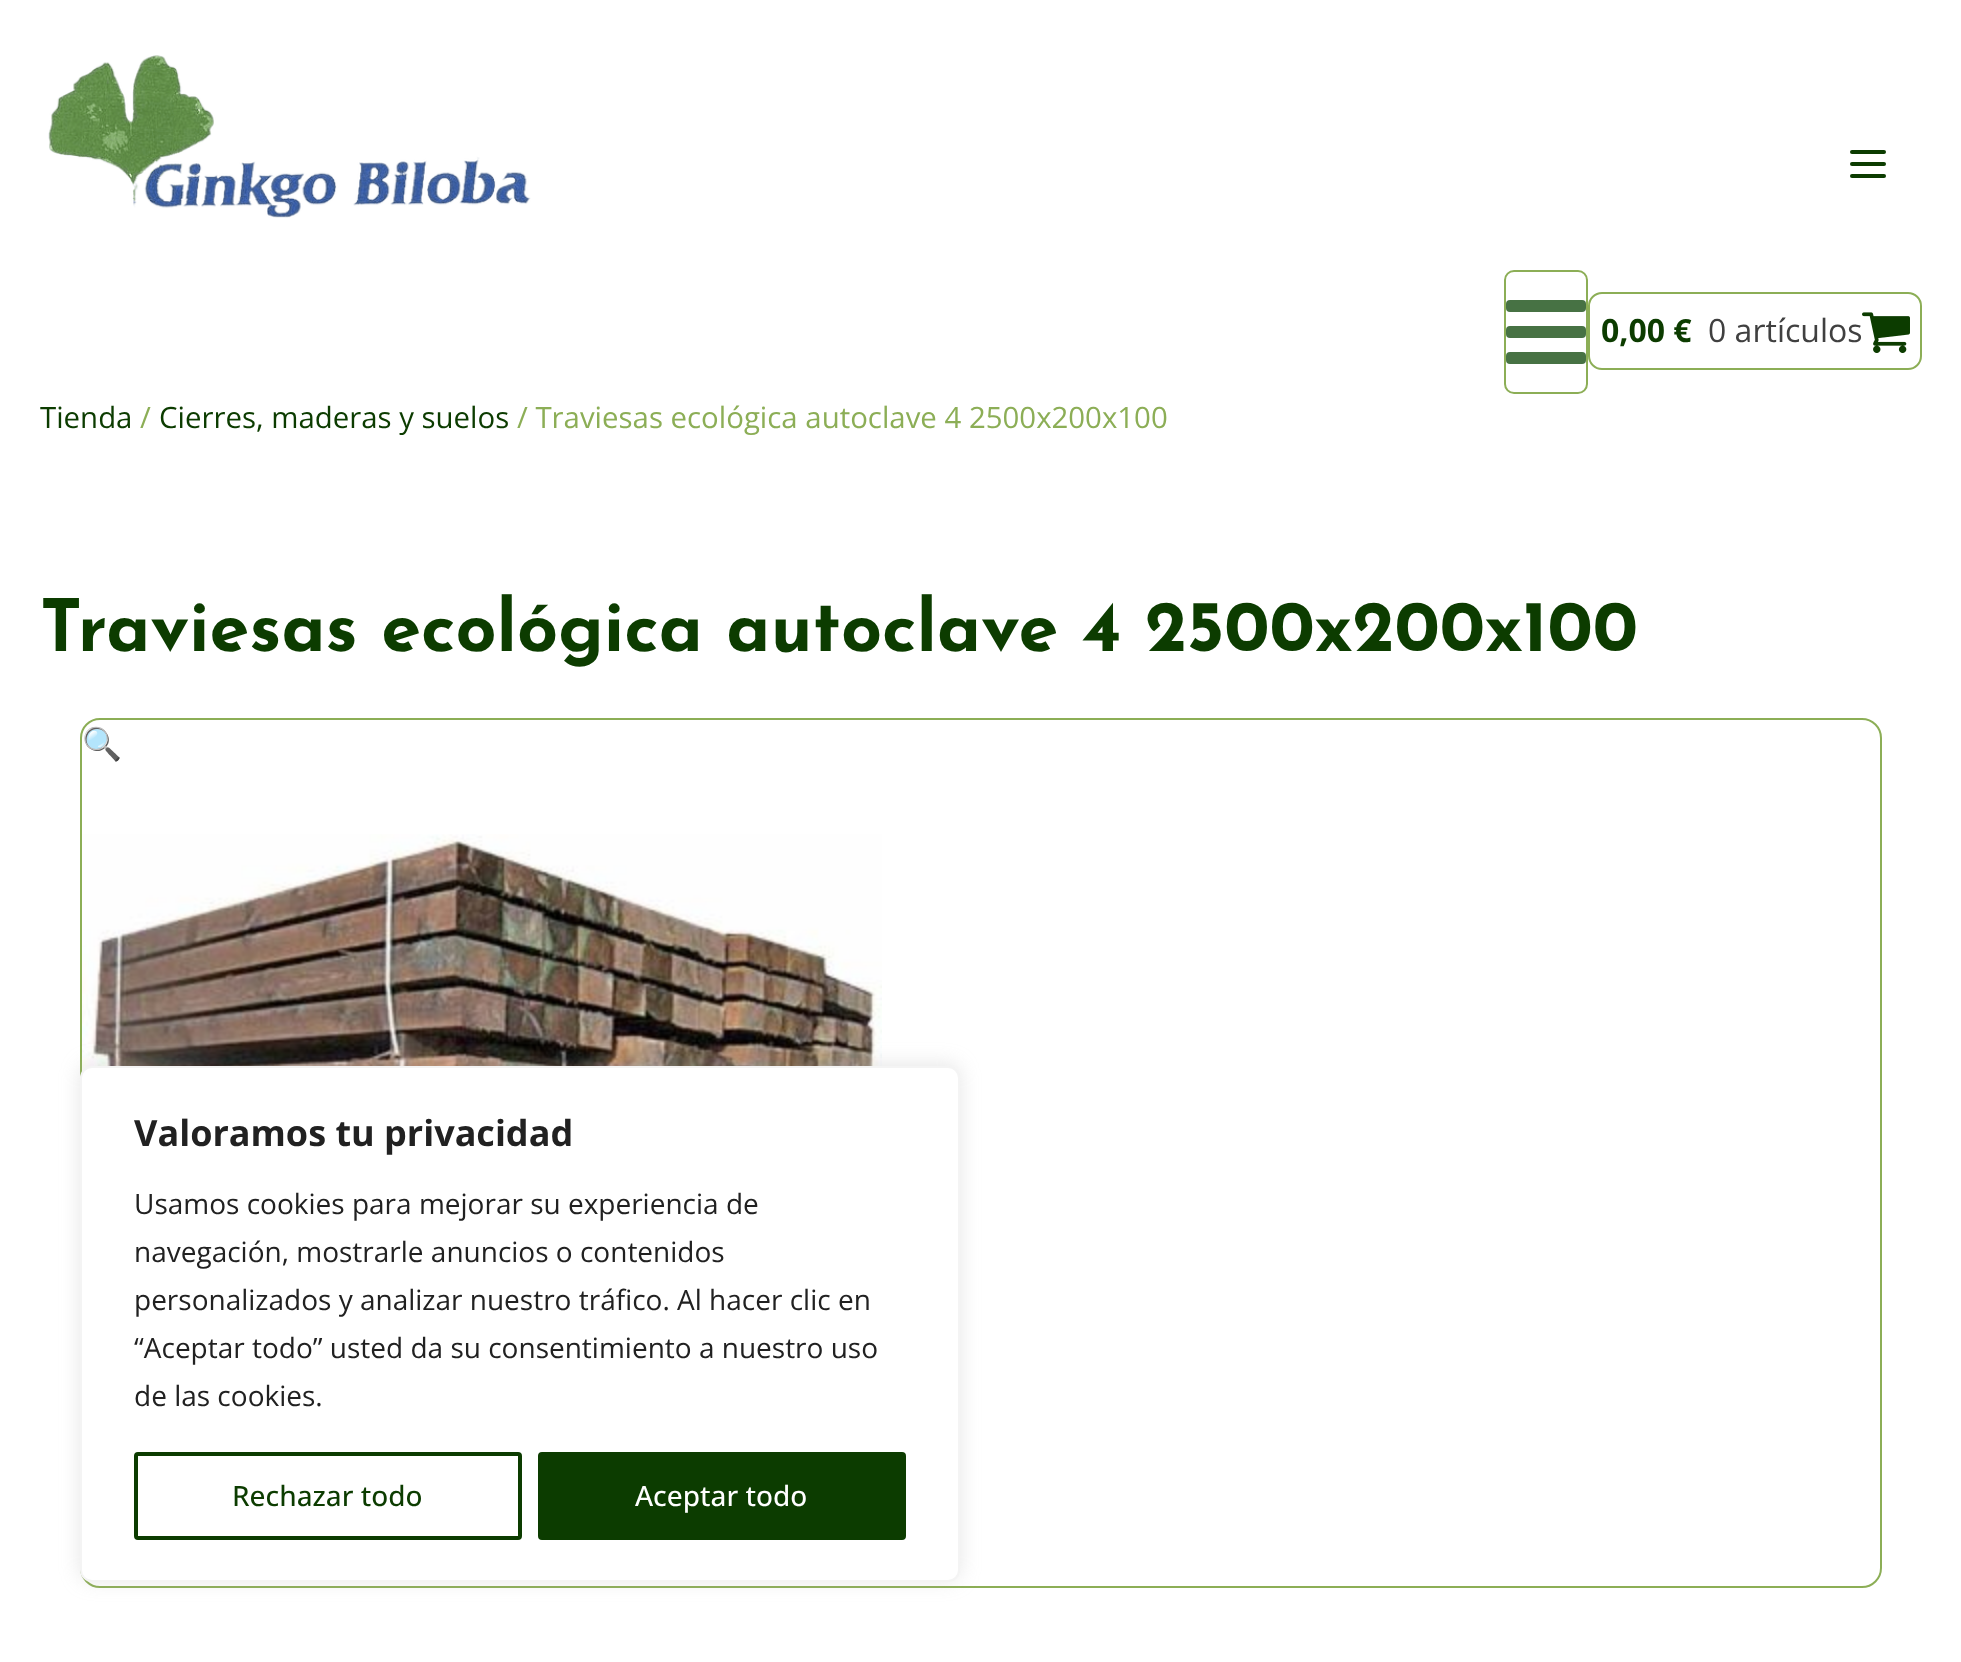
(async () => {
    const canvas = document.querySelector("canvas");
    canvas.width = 1961;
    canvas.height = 1662;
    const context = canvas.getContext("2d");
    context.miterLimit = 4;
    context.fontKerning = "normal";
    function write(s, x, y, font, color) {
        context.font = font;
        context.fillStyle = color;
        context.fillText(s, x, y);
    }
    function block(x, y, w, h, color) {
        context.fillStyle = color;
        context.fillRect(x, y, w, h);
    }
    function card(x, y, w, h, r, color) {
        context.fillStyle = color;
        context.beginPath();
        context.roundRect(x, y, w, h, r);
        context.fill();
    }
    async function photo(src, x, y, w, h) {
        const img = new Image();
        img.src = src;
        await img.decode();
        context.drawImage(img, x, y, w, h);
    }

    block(0, 0, 1961, 1662, "rgb(255, 255, 255)");
    await photo("media/1.png", 48, 55, 483, 163);
    card(1850, 150, 36, 4, 2, "rgb(12, 60, 0)");
    card(1850, 162, 36, 4, 2, "rgb(12, 60, 0)");
    card(1850, 174, 36, 4, 2, "rgb(12, 60, 0)");
    context.beginPath();
    context.roundRect(1505, 271, 82, 122, 9);
    context.strokeStyle = "rgb(140, 174, 86)";
    context.lineWidth = 2;
    context.stroke();
    card(1506, 300, 80, 12, 4, "rgb(71, 114, 68)");
    card(1506, 326, 80, 12, 4, "rgb(71, 114, 68)");
    card(1506, 352, 80, 12, 4, "rgb(71, 114, 68)");
    context.beginPath();
    context.roundRect(1589, 293, 332, 76, 13);
    context.stroke();
    write("0,00 €", 1601, 342, "bold 32px Open Sans", "rgb(12, 60, 0)");
    write("0 artículos", 1708, 342, "32px Open Sans", "rgb(64, 64, 64)");
    await photo("media/2.png", 1862, 312, 48, 41);
    write("Tienda", 40, 428, "29.4px Open Sans", "rgb(12, 60, 0)");
    write("/", 140, 428, "29.4px Open Sans", "rgb(140, 174, 86)");
    write("Cierres, maderas y suelos", 159, 428, "29.4px Open Sans", "rgb(12, 60, 0)");
    write("/ Traviesas ecológica autoclave 4 2500x200x100", 517, 428, "29.4px Open Sans", "rgb(140, 174, 86)");
    write("Traviesas ecológica autoclave 4 2500x200x100", 40, 651, "bold 72px Josefin Sans", "rgb(12, 60, 0)");
    context.beginPath();
    context.roundRect(81, 719, 1800, 868, 19);
    context.stroke();
    write("🔍", 82, 755, "32px Noto Color Emoji", "rgb(0, 116, 219)");
    await photo("media/3.png", 82, 834, 800, 238);
    context.fillStyle = "rgba(172, 171, 171, 0.3)";
    context.filter = "blur(10px)";
    context.beginPath();
    context.roundRect(80, 1064, 880, 516, 12);
    context.fill();
    context.filter = "none";
    context.fillStyle = "rgb(255, 255, 255)";
    context.beginPath();
    context.roundRect(81, 1067, 878, 514, 11);
    context.fill();
    context.strokeStyle = "rgb(244, 244, 244)";
    context.stroke();
    write("Valoramos tu privacidad", 134, 1146, "bold 36px Open Sans", "rgb(33, 33, 33)");
    write("Usamos cookies para mejorar su experiencia de", 134, 1214, "28px Open Sans", "rgb(33, 33, 33)");
    write("navegación, mostrarle anuncios o contenidos", 134, 1262, "28px Open Sans", "rgb(33, 33, 33)");
    write("personalizados y analizar nuestro tráfico. Al hacer clic en", 134, 1310, "28px Open Sans", "rgb(33, 33, 33)");
    write("“Aceptar todo” usted da su consentimiento a nuestro uso", 134, 1358, "28px Open Sans", "rgb(33, 33, 33)");
    write("de las cookies.", 134, 1406, "28px Open Sans", "rgb(33, 33, 33)");
    context.beginPath();
    context.roundRect(136, 1454, 384, 84, 2);
    context.strokeStyle = "rgb(12, 60, 0)";
    context.lineWidth = 4;
    context.stroke();
    write("Rechazar todo", 232, 1506, "500 28px Open Sans", "rgb(12, 60, 0)");
    context.beginPath();
    context.roundRect(540, 1454, 364, 84, 2);
    context.fill();
    context.stroke();
    write("Aceptar todo", 635, 1506, "500 28px Open Sans", "rgb(255, 255, 255)");
})();
